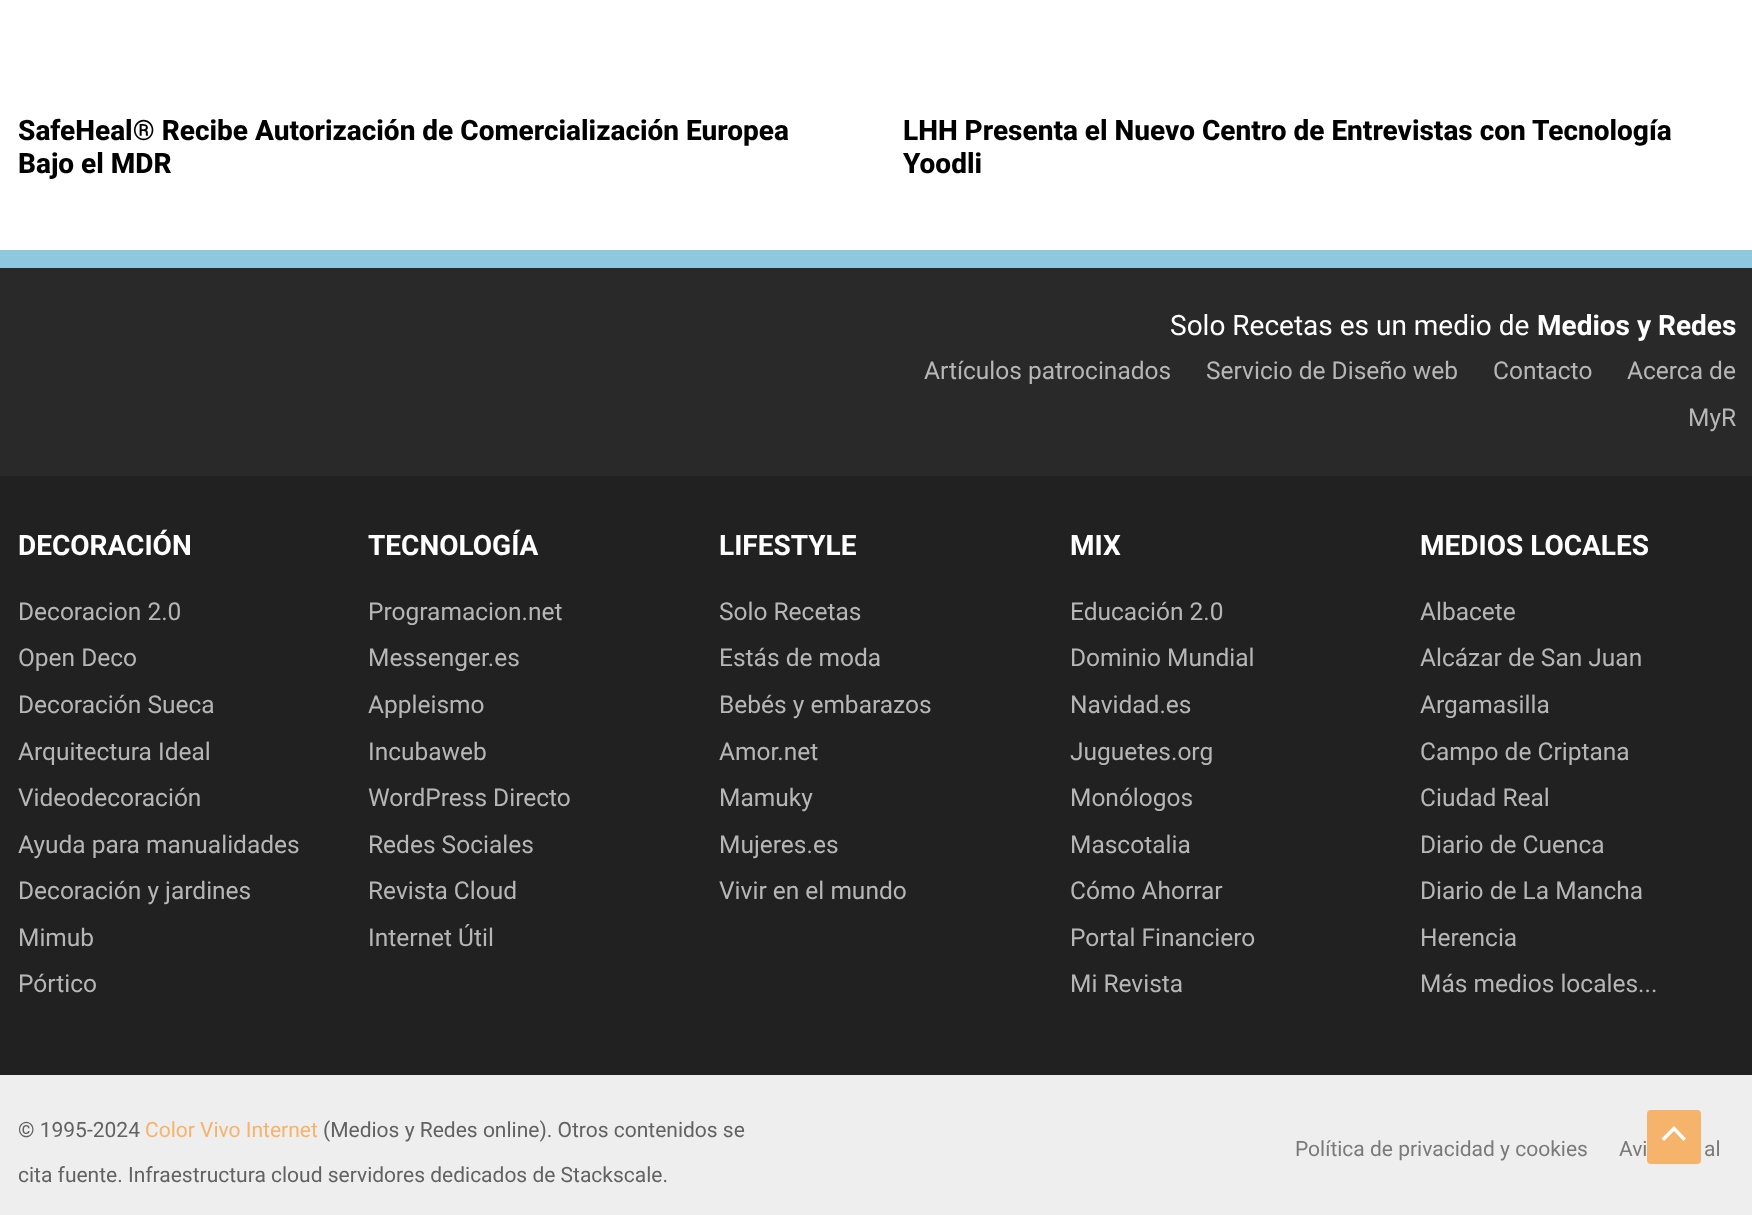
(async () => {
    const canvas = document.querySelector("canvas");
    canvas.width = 1752;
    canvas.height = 1215;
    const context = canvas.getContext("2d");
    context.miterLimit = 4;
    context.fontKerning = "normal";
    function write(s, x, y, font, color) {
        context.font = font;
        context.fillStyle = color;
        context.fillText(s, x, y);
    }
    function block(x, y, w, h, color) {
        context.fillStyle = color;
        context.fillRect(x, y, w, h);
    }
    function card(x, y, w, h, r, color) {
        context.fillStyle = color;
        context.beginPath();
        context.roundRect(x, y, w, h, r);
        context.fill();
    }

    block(0, 0, 1752, 1215, "rgb(255, 255, 255)");
    write("SafeHeal® Recibe Autorización de Comercialización Europea", 18, 140, "800 28px Roboto", "rgb(0, 0, 0)");
    write("Bajo el MDR", 18, 173, "800 28px Roboto", "rgb(0, 0, 0)");
    write("LHH Presenta el Nuevo Centro de Entrevistas con Tecnología", 903, 140, "800 28px Roboto", "rgb(0, 0, 0)");
    write("Yoodli", 903, 173, "800 28px Roboto", "rgb(0, 0, 0)");
    block(0, 268, 1752, 208, "rgb(41, 41, 41)");
    block(0, 250, 1752, 18, "rgb(142, 200, 223)");
    write("Solo Recetas es un medio de", 1170, 335, "28px Roboto", "rgb(255, 255, 255)");
    write("Medios y Redes", 1537, 335, "bold 28px Roboto", "rgb(255, 255, 255)");
    write("Artículos patrocinados", 924, 379, "24.5px Roboto", "rgb(182, 182, 182)");
    write("Servicio de Diseño web", 1206, 379, "24.5px Roboto", "rgb(182, 182, 182)");
    write("Contacto", 1493, 379, "24.5px Roboto", "rgb(182, 182, 182)");
    write("Acerca de", 1627, 379, "24.5px Roboto", "rgb(182, 182, 182)");
    write("MyR", 1688, 426, "24.5px Roboto", "rgb(182, 182, 182)");
    block(0, 476, 1752, 599, "rgb(33, 33, 33)");
    write("DECORACIÓN", 18, 555, "bold 28px Roboto", "rgb(255, 255, 255)");
    write("Decoracion 2.0", 18, 620, "24.5px Roboto", "rgb(182, 182, 182)");
    write("Open Deco", 18, 666, "24.5px Roboto", "rgb(182, 182, 182)");
    write("Decoración Sueca", 18, 713, "24.5px Roboto", "rgb(182, 182, 182)");
    write("Arquitectura Ideal", 18, 760, "24.5px Roboto", "rgb(182, 182, 182)");
    write("Videodecoración", 18, 806, "24.5px Roboto", "rgb(182, 182, 182)");
    write("Ayuda para manualidades", 18, 853, "24.5px Roboto", "rgb(182, 182, 182)");
    write("Decoración y jardines", 18, 899, "24.5px Roboto", "rgb(182, 182, 182)");
    write("Mimub", 18, 946, "24.5px Roboto", "rgb(182, 182, 182)");
    write("Pórtico", 18, 992, "24.5px Roboto", "rgb(182, 182, 182)");
    write("TECNOLOGÍA", 368, 555, "bold 28px Roboto", "rgb(255, 255, 255)");
    write("Programacion.net", 368, 620, "24.5px Roboto", "rgb(182, 182, 182)");
    write("Messenger.es", 368, 666, "24.5px Roboto", "rgb(182, 182, 182)");
    write("Appleismo", 368, 713, "24.5px Roboto", "rgb(182, 182, 182)");
    write("Incubaweb", 368, 760, "24.5px Roboto", "rgb(182, 182, 182)");
    write("WordPress Directo", 368, 806, "24.5px Roboto", "rgb(182, 182, 182)");
    write("Redes Sociales", 368, 853, "24.5px Roboto", "rgb(182, 182, 182)");
    write("Revista Cloud", 368, 899, "24.5px Roboto", "rgb(182, 182, 182)");
    write("Internet Útil", 368, 946, "24.5px Roboto", "rgb(182, 182, 182)");
    write("LIFESTYLE", 719, 555, "bold 28px Roboto", "rgb(255, 255, 255)");
    write("Solo Recetas", 719, 620, "24.5px Roboto", "rgb(182, 182, 182)");
    write("Estás de moda", 719, 666, "24.5px Roboto", "rgb(182, 182, 182)");
    write("Bebés y embarazos", 719, 713, "24.5px Roboto", "rgb(182, 182, 182)");
    write("Amor.net", 719, 760, "24.5px Roboto", "rgb(182, 182, 182)");
    write("Mamuky", 719, 806, "24.5px Roboto", "rgb(182, 182, 182)");
    write("Mujeres.es", 719, 853, "24.5px Roboto", "rgb(182, 182, 182)");
    write("Vivir en el mundo", 719, 899, "24.5px Roboto", "rgb(182, 182, 182)");
    write("MIX", 1070, 555, "bold 28px Roboto", "rgb(255, 255, 255)");
    write("Educación 2.0", 1070, 620, "24.5px Roboto", "rgb(182, 182, 182)");
    write("Dominio Mundial", 1070, 666, "24.5px Roboto", "rgb(182, 182, 182)");
    write("Navidad.es", 1070, 713, "24.5px Roboto", "rgb(182, 182, 182)");
    write("Juguetes.org", 1070, 760, "24.5px Roboto", "rgb(182, 182, 182)");
    write("Monólogos", 1070, 806, "24.5px Roboto", "rgb(182, 182, 182)");
    write("Mascotalia", 1070, 853, "24.5px Roboto", "rgb(182, 182, 182)");
    write("Cómo Ahorrar", 1070, 899, "24.5px Roboto", "rgb(182, 182, 182)");
    write("Portal Financiero", 1070, 946, "24.5px Roboto", "rgb(182, 182, 182)");
    write("Mi Revista", 1070, 992, "24.5px Roboto", "rgb(182, 182, 182)");
    write("MEDIOS LOCALES", 1420, 555, "bold 28px Roboto", "rgb(255, 255, 255)");
    write("Albacete", 1420, 620, "24.5px Roboto", "rgb(182, 182, 182)");
    write("Alcázar de San Juan", 1420, 666, "24.5px Roboto", "rgb(182, 182, 182)");
    write("Argamasilla", 1420, 713, "24.5px Roboto", "rgb(182, 182, 182)");
    write("Campo de Criptana", 1420, 760, "24.5px Roboto", "rgb(182, 182, 182)");
    write("Ciudad Real", 1420, 806, "24.5px Roboto", "rgb(182, 182, 182)");
    write("Diario de Cuenca", 1420, 853, "24.5px Roboto", "rgb(182, 182, 182)");
    write("Diario de La Mancha", 1420, 899, "24.5px Roboto", "rgb(182, 182, 182)");
    write("Herencia", 1420, 946, "24.5px Roboto", "rgb(182, 182, 182)");
    write("Más medios locales...", 1420, 992, "24.5px Roboto", "rgb(182, 182, 182)");
    block(0, 1075, 1752, 140, "rgb(238, 238, 238)");
    write("© 1995-2024", 18, 1137, "21px Roboto", "rgb(98, 98, 98)");
    write("Color Vivo Internet", 145, 1137, "21px Roboto", "rgb(245, 179, 108)");
    write("(Medios y Redes online). Otros contenidos se", 323, 1137, "21px Roboto", "rgb(98, 98, 98)");
    write("cita fuente. Infraestructura cloud servidores dedicados de Stackscale.", 18, 1182, "21px Roboto", "rgb(98, 98, 98)");
    write("Política de privacidad y cookies", 1295, 1156, "21px Roboto", "rgb(122, 122, 122)");
    write("Avi", 1619, 1156, "21px Roboto", "rgb(122, 122, 122)");
    write("al", 1704, 1156, "21px Roboto", "rgb(122, 122, 122)");
    card(1647, 1110, 54, 54, 4, "rgb(245, 179, 108)");
    context.fillStyle = "rgb(255, 255, 255)";
    context.beginPath();
    context.moveTo(1686, 1138.5);
    context.lineTo(1674, 1126);
    context.lineTo(1661.5, 1138.5);
    context.lineTo(1664, 1141);
    context.lineTo(1674, 1131);
    context.lineTo(1683.5, 1141);
    context.closePath();
    context.fill();
})();
